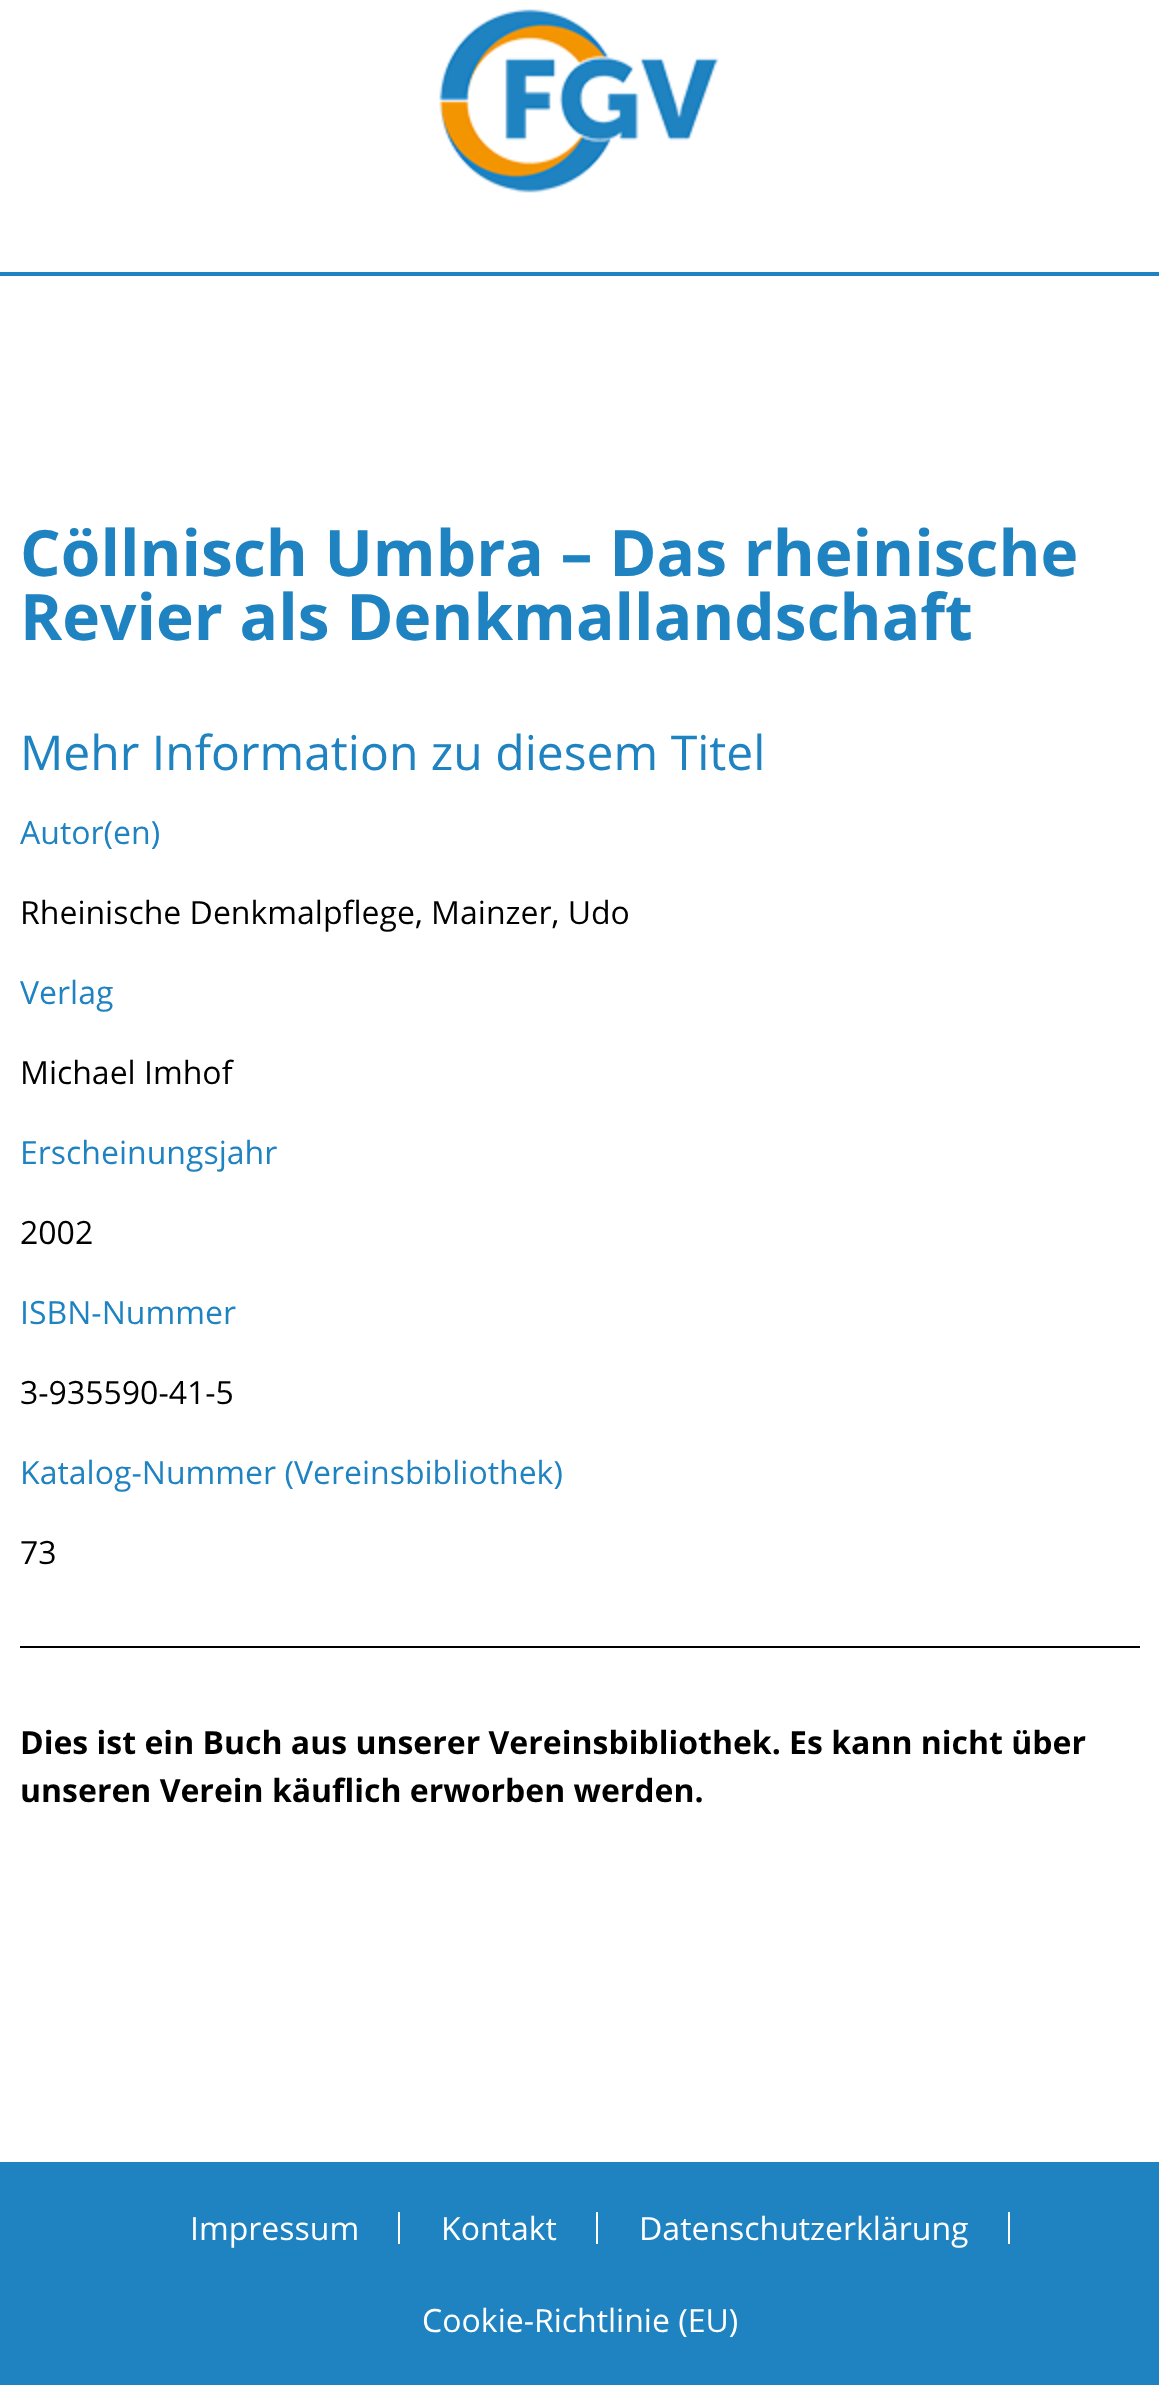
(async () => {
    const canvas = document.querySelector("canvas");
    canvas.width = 1159;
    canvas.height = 2385;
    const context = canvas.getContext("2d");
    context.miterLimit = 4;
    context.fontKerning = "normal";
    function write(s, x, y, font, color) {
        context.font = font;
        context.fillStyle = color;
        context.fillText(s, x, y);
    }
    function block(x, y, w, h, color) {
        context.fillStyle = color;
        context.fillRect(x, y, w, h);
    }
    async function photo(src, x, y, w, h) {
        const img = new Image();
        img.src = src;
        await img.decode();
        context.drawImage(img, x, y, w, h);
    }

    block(0, 0, 1159, 2385, "rgb(255, 255, 255)");
    block(0, 272, 1159, 4, "rgb(31, 131, 193)");
    await photo("media/1.png", 439, 9, 280, 184);
    write("Cöllnisch Umbra – Das rheinische", 20, 576, "bold 64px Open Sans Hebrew", "rgb(31, 131, 193)");
    write("Revier als Denkmallandschaft", 20, 640, "bold 64px Open Sans Hebrew", "rgb(31, 131, 193)");
    write("Mehr Information zu diesem Titel", 20, 770, "48px Open Sans Hebrew", "rgb(31, 131, 193)");
    write("Autor(en)", 20, 844, "32px Open Sans Hebrew", "rgb(31, 131, 193)");
    write("Rheinische Denkmalpflege, Mainzer, Udo", 20, 924, "32px Open Sans Hebrew", "rgb(0, 0, 0)");
    write("Verlag", 20, 1004, "32px Open Sans Hebrew", "rgb(31, 131, 193)");
    write("Michael Imhof", 20, 1084, "32px Open Sans Hebrew", "rgb(0, 0, 0)");
    write("Erscheinungsjahr", 20, 1164, "32px Open Sans Hebrew", "rgb(31, 131, 193)");
    write("2002", 20, 1244, "32px Open Sans Hebrew", "rgb(0, 0, 0)");
    write("ISBN-Nummer", 20, 1324, "32px Open Sans Hebrew", "rgb(31, 131, 193)");
    write("3-935590-41-5", 20, 1404, "32px Open Sans Hebrew", "rgb(0, 0, 0)");
    write("Katalog-Nummer (Vereinsbibliothek)", 20, 1484, "32px Open Sans Hebrew", "rgb(31, 131, 193)");
    write("73", 20, 1564, "32px Open Sans Hebrew", "rgb(0, 0, 0)");
    block(20, 1646, 1120, 2, "rgb(0, 0, 0)");
    write("Dies ist ein Buch aus unserer Vereinsbibliothek. Es kann nicht über", 20, 1754, "bold 32px Open Sans Hebrew", "rgb(0, 0, 0)");
    write("unseren Verein käuflich erworben werden.", 20, 1802, "bold 32px Open Sans Hebrew", "rgb(0, 0, 0)");
    block(0, 2162, 1159, 223, "rgb(31, 131, 193)");
    write("Impressum", 190, 2240, "32px Open Sans Hebrew", "rgb(255, 255, 255)");
    block(398, 2212, 2, 32, "rgb(255, 255, 255)");
    write("Kontakt", 441, 2240, "32px Open Sans Hebrew", "rgb(255, 255, 255)");
    block(596, 2212, 2, 32, "rgb(255, 255, 255)");
    write("Datenschutzerklärung", 639, 2240, "32px Open Sans Hebrew", "rgb(255, 255, 255)");
    block(1008, 2212, 2, 32, "rgb(255, 255, 255)");
    write("Cookie-Richtlinie (EU)", 422, 2332, "32px Open Sans Hebrew", "rgb(255, 255, 255)");
})();
